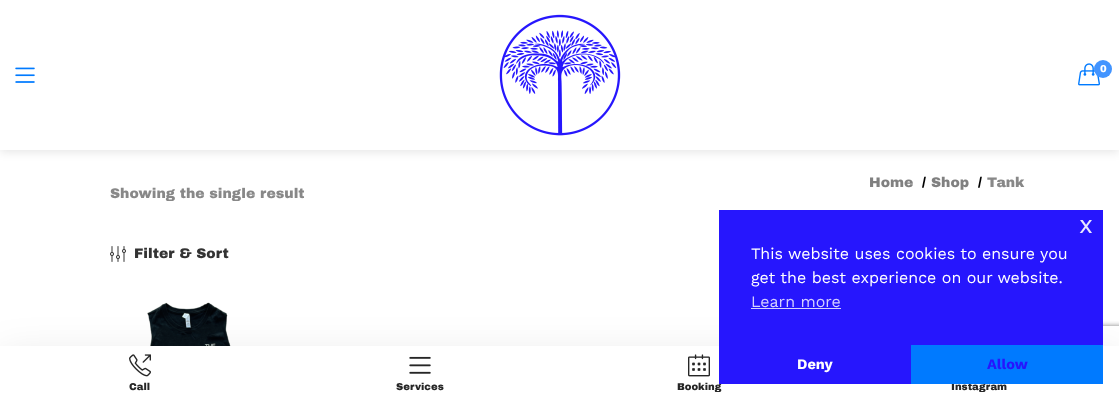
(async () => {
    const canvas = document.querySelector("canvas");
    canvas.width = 1119;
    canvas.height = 400;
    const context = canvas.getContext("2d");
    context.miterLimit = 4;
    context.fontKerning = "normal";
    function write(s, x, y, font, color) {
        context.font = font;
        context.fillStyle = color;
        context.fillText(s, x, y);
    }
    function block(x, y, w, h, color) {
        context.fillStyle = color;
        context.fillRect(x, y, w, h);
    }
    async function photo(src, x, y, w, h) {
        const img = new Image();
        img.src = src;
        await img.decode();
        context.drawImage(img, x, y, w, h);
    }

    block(0, 0, 1119, 400, "rgb(255, 255, 255)");
    context.fillStyle = "rgba(0, 0, 0, 0.1)";
    context.filter = "blur(5px)";
    context.beginPath();
    context.rect(0, 2, 1119, 150);
    context.fill();
    context.filter = "none";
    block(0, 0, 1119, 150, "rgb(255, 255, 255)");
    await photo("media/1.png", 15, 67, 20, 16);
    await photo("media/2.png", 499, 14, 122, 122);
    await photo("media/3.png", 1078, 63, 22, 23);
    context.fillStyle = "rgb(66, 148, 255)";
    context.beginPath();
    context.arc(1103, 69, 9, 0, Math.PI * 2);
    context.fill();
    write("0", 1100, 72, "900 10px Archivo Black", "rgb(255, 255, 255)");
    write("Home", 869, 187, "900 14px Archivo Black", "rgb(128, 128, 128)");
    write("/", 922, 187, "900 14px Archivo Black", "rgb(0, 0, 0)");
    write("Shop", 931, 187, "900 14px Archivo Black", "rgb(128, 128, 128)");
    write("/", 978, 187, "900 14px Archivo Black", "rgb(0, 0, 0)");
    write("Tank", 987, 187, "900 14px Archivo Black", "rgb(136, 136, 136)");
    write("Showing the single result", 110, 198, "900 14px Archivo Black", "rgb(136, 136, 136)");
    await photo("media/4.png", 110, 246, 16, 16);
    write("Filter & Sort", 134, 258, "900 14px Archivo Black", "rgb(51, 51, 51)");
    await photo("media/5.png", 147, 302, 84, 44);
    context.fillStyle = "rgba(0, 0, 0, 0.1)";
    context.filter = "blur(20px)";
    context.beginPath();
    context.rect(0, 356, 1119, 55);
    context.fill();
    context.filter = "none";
    context.save();
    context.beginPath();
    context.rect(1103, 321, 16, 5);
    context.clip();
    context.fillStyle = "rgb(128, 128, 128)";
    context.filter = "blur(2.5px)";
    context.beginPath();
    context.roundRect(1049, 326, 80, 60, 2);
    context.fill();
    context.filter = "none";
    context.restore();
    block(0, 346, 1119, 54, "rgb(255, 255, 255)");
    await photo("media/6.png", 129, 354, 22, 23);
    write("Call", 129, 390, "900 10px Archivo Black", "rgb(38, 38, 38)");
    await photo("media/7.png", 409, 356, 22, 18);
    write("Services", 396, 390, "900 10px Archivo Black", "rgb(38, 38, 38)");
    await photo("media/8.png", 688, 354, 22, 23);
    write("Booking", 677, 390, "900 10px Archivo Black", "rgb(38, 38, 38)");
    write("Instagram", 951, 390, "900 10px Archivo Black", "rgb(38, 38, 38)");
    block(719, 210, 384, 174, "rgb(38, 22, 253)");
    write("x", 1079, 233, "26px Work Sans", "rgb(233, 232, 255)");
    write("This website uses cookies to ensure you", 751, 259, "16px Work Sans", "rgb(255, 255, 255)");
    write("get the best experience on our website.", 751, 283, "16px Work Sans", "rgb(255, 255, 255)");
    write("Learn more", 751, 307, "16px Work Sans", "rgb(212, 208, 255)");
    block(751, 308, 90, 1, "rgb(212, 208, 255)");
    write("Deny", 797, 369, "bold 14.5px Work Sans", "rgb(255, 255, 255)");
    block(911, 345, 192, 39, "rgb(0, 122, 255)");
    write("Allow", 987, 369, "bold 14.5px Work Sans", "rgb(38, 22, 253)");
})();
